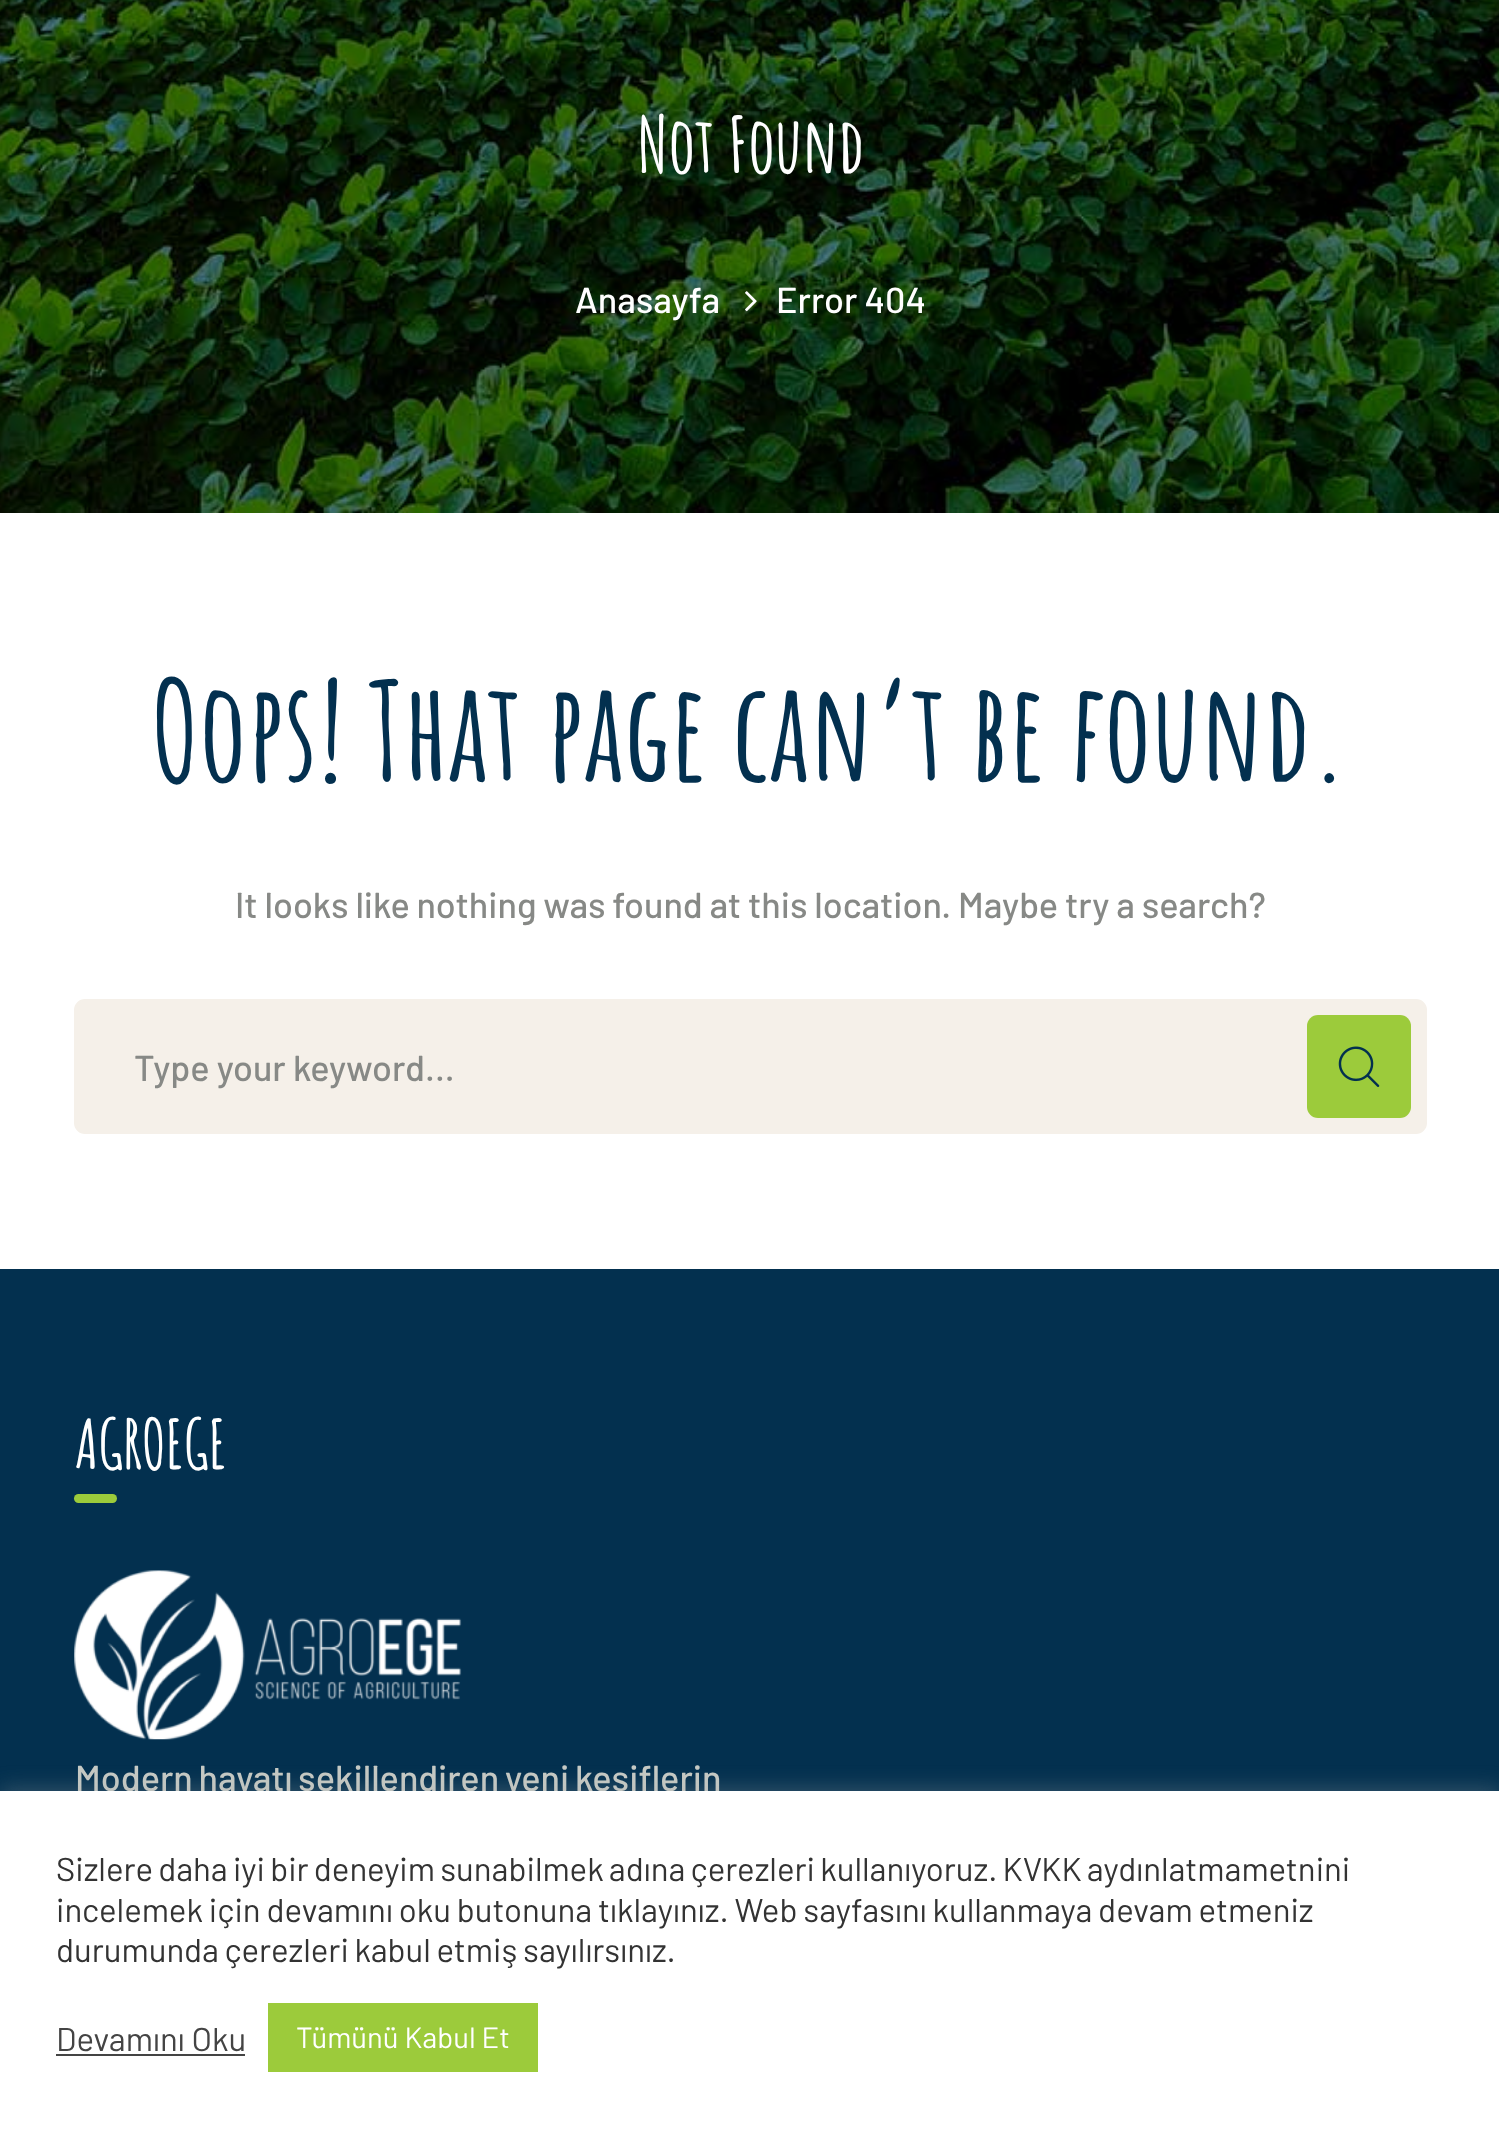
(async () => {
    const canvas = document.querySelector("canvas");
    canvas.width = 1499;
    canvas.height = 2139;
    const context = canvas.getContext("2d");
    context.miterLimit = 4;
    context.fontKerning = "normal";
    function write(s, x, y, font, color) {
        context.font = font;
        context.fillStyle = color;
        context.fillText(s, x, y);
    }
    function block(x, y, w, h, color) {
        context.fillStyle = color;
        context.fillRect(x, y, w, h);
    }
    function card(x, y, w, h, r, color) {
        context.fillStyle = color;
        context.beginPath();
        context.roundRect(x, y, w, h, r);
        context.fill();
    }
    async function photo(src, x, y, w, h) {
        const img = new Image();
        img.src = src;
        await img.decode();
        context.drawImage(img, x, y, w, h);
    }

    block(0, 0, 1499, 2139, "rgb(255, 255, 255)");
    await photo("media/1.png", 0, 0, 1499, 513);
    context.letterSpacing = "-0.45px";
    write("Not Found", 637, 173, "bold 76.5px Amatic SC", "rgb(255, 255, 255)");
    context.letterSpacing = "0px";
    write("Anasayfa", 575, 313, "500 36px Barlow", "rgb(255, 255, 255)");
    await photo("media/2.png", 745, 291, 12, 21);
    write("Error 404", 776, 313, "500 36px Barlow", "rgb(255, 255, 255)");
    context.letterSpacing = "-0.45px";
    write("Oops! That page can’t be found.", 151, 781, "bold 135px Amatic SC", "rgb(3, 48, 79)");
    context.letterSpacing = "0px";
    context.wordSpacing = "-0.4px";
    write("It looks like nothing was found at this location. Maybe try a search?", 235, 918, "500 36px Barlow", "rgb(135, 137, 134)");
    context.fillStyle = "rgb(245, 240, 233)";
    context.beginPath();
    context.roundRect(75, 1000, 1351, 133, 10);
    context.fill();
    context.strokeStyle = "rgb(245, 240, 233)";
    context.lineWidth = 2;
    context.stroke();
    context.wordSpacing = "0px";
    write("Type your keyword...", 134, 1081, "500 36px Barlow", "rgb(135, 137, 134)");
    card(1307, 1015, 104, 103, 11, "rgb(156, 203, 59)");
    await photo("media/3.png", 1338, 1046, 42, 41);
    block(0, 1269, 1499, 522, "rgb(3, 48, 79)");
    context.letterSpacing = "-0.45px";
    write("AGROEGE", 75, 1469, "bold 67.5px Amatic SC", "rgb(255, 255, 255)");
    card(74, 1494, 43, 9, 4.5, "rgb(156, 203, 59)");
    await photo("media/4.png", 74, 1570, 388, 170);
    context.letterSpacing = "0px";
    context.wordSpacing = "-1.5px";
    write("Modern hayatı şekillendiren yeni keşiflerin", 75, 1791, "500 36px Barlow", "rgb(197, 201, 196)");
    context.fillStyle = "rgba(172, 171, 171, 0.3)";
    context.filter = "blur(11px)";
    context.beginPath();
    context.rect(0, 1789, 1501, 349);
    context.fill();
    context.filter = "none";
    block(0, 1791, 1499, 348, "rgb(255, 255, 255)");
    context.wordSpacing = "-1.4px";
    write("Sizlere daha iyi bir deneyim sunabilmek adına çerezleri kullanıyoruz. KVKK aydınlatmametnini", 56, 1881, "33px Barlow", "rgb(51, 51, 51)");
    context.wordSpacing = "-0.75px";
    write("incelemek için devamını oku butonuna tıklayınız. Web sayfasını kullanmaya devam etmeniz", 56, 1922, "33px Barlow", "rgb(51, 51, 51)");
    context.wordSpacing = "-1px";
    write("durumunda çerezleri kabul etmiş sayılırsınız.", 56, 1962, "33px Barlow", "rgb(51, 51, 51)");
    context.wordSpacing = "0px";
    write("Devamını Oku", 56, 2051, "33px Barlow", "rgb(68, 68, 68)");
    block(56, 2054, 189, 2, "rgb(68, 68, 68)");
    block(268, 2003, 270, 69, "rgb(156, 203, 59)");
    write("Tümünü Kabul Et", 296, 2048, "29.25px Barlow", "rgb(255, 255, 255)");
})();
